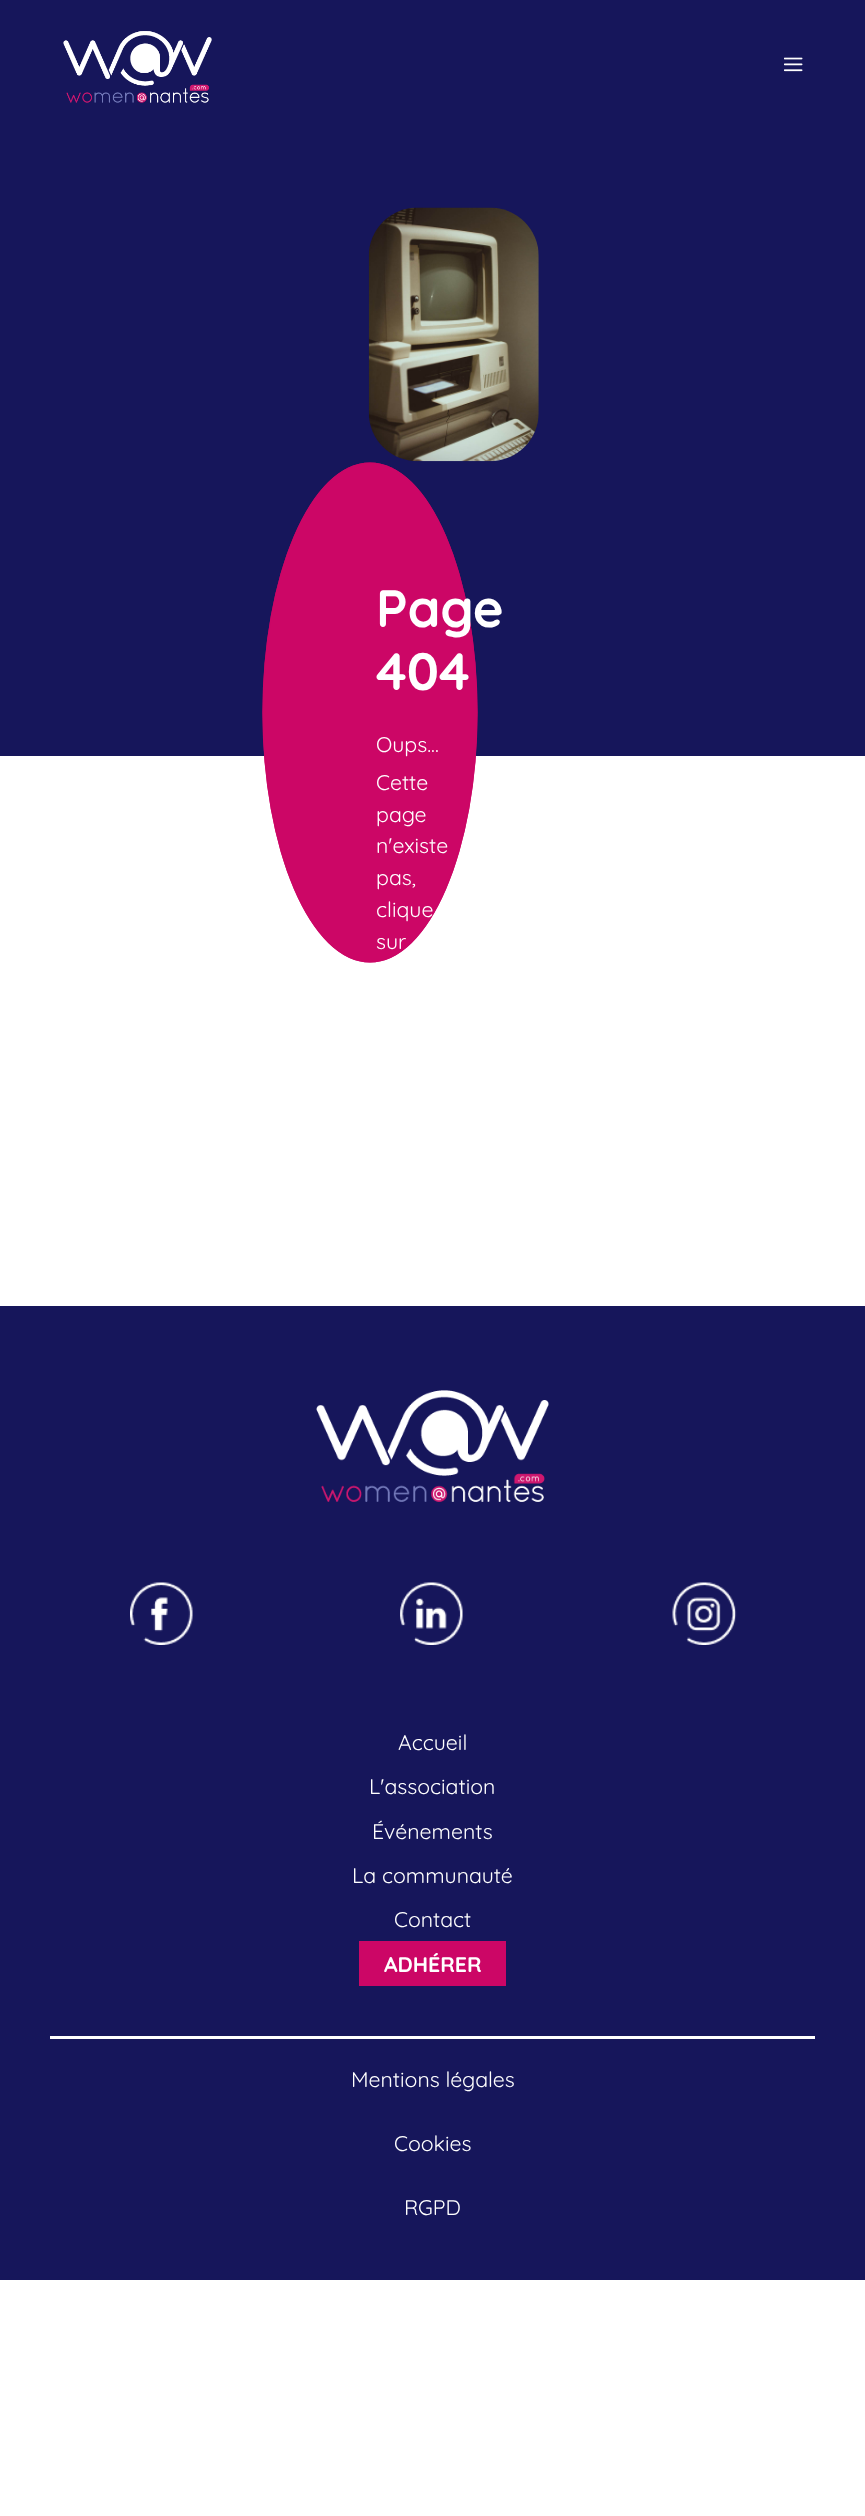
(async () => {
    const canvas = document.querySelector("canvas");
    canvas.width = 865;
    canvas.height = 2516;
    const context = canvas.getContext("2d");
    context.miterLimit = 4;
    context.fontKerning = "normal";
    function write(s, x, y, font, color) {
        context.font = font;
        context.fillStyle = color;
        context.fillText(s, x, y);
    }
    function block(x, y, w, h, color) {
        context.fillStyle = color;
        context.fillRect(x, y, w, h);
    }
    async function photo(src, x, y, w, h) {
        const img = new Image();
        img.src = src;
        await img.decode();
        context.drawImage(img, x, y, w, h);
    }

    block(0, 0, 865, 2516, "rgb(255, 255, 255)");
    block(0, 0, 865, 756, "rgb(22, 22, 91)");
    await photo("media/1.png", 63, 31, 149, 72);
    await photo("media/2.png", 784, 57, 19, 15);
    await photo("media/3.png", 368, 207, 171, 255);
    context.fillStyle = "rgb(204, 6, 102)";
    context.beginPath();
    context.ellipse(370, 712.5, 107.5, 250, 0, 0, Math.PI * 2);
    context.fill();
    context.beginPath();
    context.moveTo(370, 463);
    context.bezierCurveTo(429, 463, 477, 575, 477, 712.5);
    context.bezierCurveTo(477, 850, 429, 962, 370, 962);
    context.bezierCurveTo(311, 962, 263, 850, 263, 712.5);
    context.bezierCurveTo(263, 575, 311, 463, 370, 463);
    context.closePath();
    context.strokeStyle = "rgb(204, 6, 102)";
    context.lineWidth = 1.2;
    context.stroke();
    write("Page", 376, 627, "300 52.5px 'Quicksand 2'", "rgb(255, 255, 255)");
    write("404", 376, 690, "300 52.5px 'Quicksand 2'", "rgb(255, 255, 255)");
    write("Oups...", 376, 752, "300 21.25px Quicksand", "rgb(255, 255, 255)");
    write("Cette", 376, 790, "300 21.25px Quicksand", "rgb(255, 255, 255)");
    write("page", 376, 822, "300 21.25px Quicksand", "rgb(255, 255, 255)");
    write("n'existe", 376, 853, "300 21.25px Quicksand", "rgb(255, 255, 255)");
    write("pas,", 376, 885, "300 21.25px Quicksand", "rgb(255, 255, 255)");
    write("clique", 376, 917, "300 21.25px Quicksand", "rgb(255, 255, 255)");
    write("sur", 376, 949, "300 21.25px Quicksand", "rgb(255, 255, 255)");
    block(0, 1306, 865, 974, "rgb(22, 22, 91)");
    await photo("media/4.png", 316, 1390, 233, 112);
    await photo("media/5.png", 130, 1582, 63, 63);
    await photo("media/6.png", 400, 1582, 63, 63);
    await photo("media/7.png", 672, 1582, 65, 63);
    write("Accueil", 398, 1750, "300 21.25px Quicksand", "rgb(255, 255, 255)");
    write("L'association", 369, 1794, "300 21.25px Quicksand", "rgb(255, 255, 255)");
    write("Événements", 372, 1839, "300 21.25px Quicksand", "rgb(255, 255, 255)");
    write("La communauté", 352, 1883, "300 21.25px Quicksand", "rgb(255, 255, 255)");
    write("Contact", 394, 1927, "300 21.25px Quicksand", "rgb(255, 255, 255)");
    block(359, 1941, 147, 45, "rgb(204, 6, 102)");
    write("ADHÉRER", 384, 1972, "300 21.25px 'Quicksand 2'", "rgb(255, 255, 255)");
    block(50, 2036, 765, 3, "rgb(255, 255, 255)");
    write("Mentions légales", 351, 2087, "300 21.25px Quicksand", "rgb(255, 255, 255)");
    write("Cookies", 394, 2151, "300 21.25px Quicksand", "rgb(255, 255, 255)");
    write("RGPD", 404, 2215, "300 21.25px Quicksand", "rgb(255, 255, 255)");
})();
